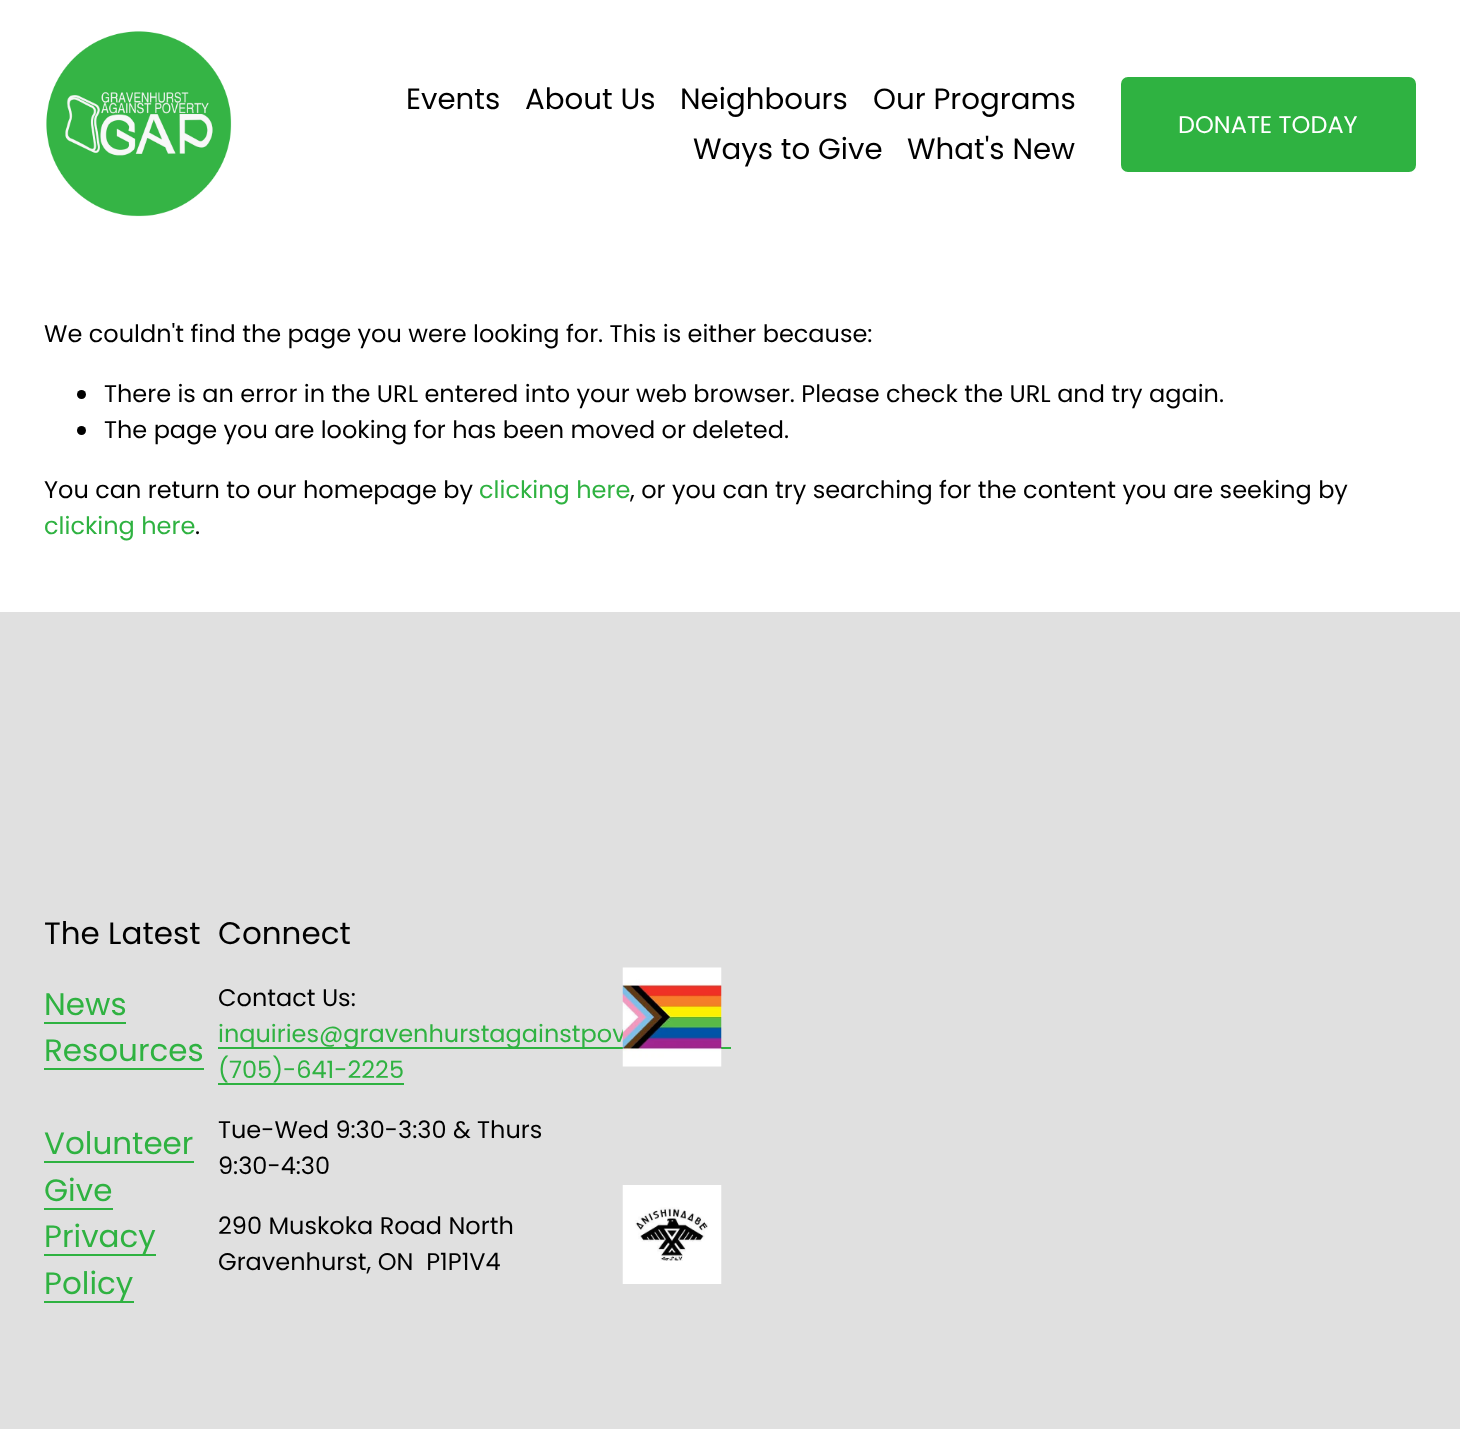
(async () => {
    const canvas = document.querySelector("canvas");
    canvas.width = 1460;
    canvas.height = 1429;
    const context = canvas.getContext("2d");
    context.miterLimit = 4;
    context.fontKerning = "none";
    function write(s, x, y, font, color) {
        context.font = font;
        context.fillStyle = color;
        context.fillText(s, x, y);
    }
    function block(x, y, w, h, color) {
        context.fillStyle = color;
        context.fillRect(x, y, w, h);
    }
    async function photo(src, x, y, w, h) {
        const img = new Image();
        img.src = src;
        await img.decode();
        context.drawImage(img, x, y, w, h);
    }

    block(0, 0, 1460, 1429, "rgb(255, 255, 255)");
    await photo("media/1.png", 46, 31, 186, 186);
    write("Events", 406, 109, "29.25px Poppins", "rgb(0, 0, 0)");
    write("About Us", 525, 109, "29.25px Poppins", "rgb(0, 0, 0)");
    write("Neighbours", 680, 109, "29.25px Poppins", "rgb(0, 0, 0)");
    write("Our Programs", 873, 109, "29.25px Poppins", "rgb(0, 0, 0)");
    write("Ways to Give", 693, 159, "29.25px Poppins", "rgb(0, 0, 0)");
    write("What's New", 907, 159, "29.25px Poppins", "rgb(0, 0, 0)");
    context.fillStyle = "rgb(47, 178, 65)";
    context.beginPath();
    context.roundRect(1120, 76, 297, 97, 8);
    context.fill();
    context.strokeStyle = "rgb(255, 255, 255)";
    context.lineWidth = 2;
    context.stroke();
    write("DONATE TODAY", 1178, 133, "24px Poppins", "rgb(255, 255, 255)");
    write("We couldn't find the page you were looking for. This is either because:", 44, 342, "24px Poppins", "rgb(0, 0, 0)");
    context.beginPath();
    context.arc(81.5, 394.5, 4.5, 0, Math.PI * 2);
    context.fill();
    write("There is an error in the URL entered into your web browser. Please check the URL and try again.", 104, 402, "24px Poppins", "rgb(0, 0, 0)");
    context.beginPath();
    context.arc(81.5, 430.5, 4.5, 0, Math.PI * 2);
    context.fill();
    write("The page you are looking for has been moved or deleted.", 104, 438, "24px Poppins", "rgb(0, 0, 0)");
    write("You can return to our homepage by", 44, 498, "24px Poppins", "rgb(0, 0, 0)");
    write("clicking here", 479, 498, "24px Poppins", "rgb(47, 178, 65)");
    write(", or you can try searching for the content you are seeking by", 630, 498, "24px Poppins", "rgb(0, 0, 0)");
    write("clicking here", 44, 534, "24px Poppins", "rgb(47, 178, 65)");
    write(".", 195, 534, "24px Poppins", "rgb(0, 0, 0)");
    block(0, 612, 1460, 817, "rgb(224, 224, 224)");
    write("The Latest", 44, 944, "31px Poppins", "rgb(0, 0, 0)");
    write("News", 44, 1015, "31px Poppins", "rgb(47, 178, 65)");
    block(44, 1022, 82, 2, "rgb(47, 178, 65)");
    write("Resources", 44, 1061, "31px Poppins", "rgb(47, 178, 65)");
    block(44, 1068, 160, 2, "rgb(47, 178, 65)");
    write("Volunteer", 44, 1154, "31px Poppins", "rgb(47, 178, 65)");
    block(44, 1161, 150, 2, "rgb(47, 178, 65)");
    write("Give", 44, 1201, "31px Poppins", "rgb(47, 178, 65)");
    block(44, 1208, 69, 2, "rgb(47, 178, 65)");
    block(44, 1254, 112, 2, "rgb(47, 178, 65)");
    write("Privacy", 44, 1247, "31px Poppins", "rgb(47, 178, 65)");
    block(44, 1301, 90, 2, "rgb(47, 178, 65)");
    write("Policy", 44, 1294, "31px Poppins", "rgb(47, 178, 65)");
    write("Connect", 218, 944, "31px Poppins", "rgb(0, 0, 0)");
    write("Contact Us:", 218, 1006, "24px Poppins", "rgb(0, 0, 0)");
    block(218, 1047, 513, 2, "rgb(47, 178, 65)");
    write("inquiries@gravenhurstagainstpov", 218, 1042, "24px Poppins", "rgb(47, 178, 65)");
    write("(705)-641-2225", 218, 1078, "24px Poppins", "rgb(47, 178, 65)");
    block(218, 1083, 186, 2, "rgb(47, 178, 65)");
    write("Tue-Wed 9:30-3:30 & Thurs", 218, 1138, "24px Poppins", "rgb(0, 0, 0)");
    write("9:30-4:30", 218, 1174, "24px Poppins", "rgb(0, 0, 0)");
    write("290 Muskoka Road North", 218, 1234, "24px Poppins", "rgb(0, 0, 0)");
    write("Gravenhurst, ON  P1P1V4", 218, 1270, "24px Poppins", "rgb(0, 0, 0)");
    await photo("media/2.png", 622, 967, 100, 100);
    await photo("media/3.png", 622, 1185, 100, 99);
})();
